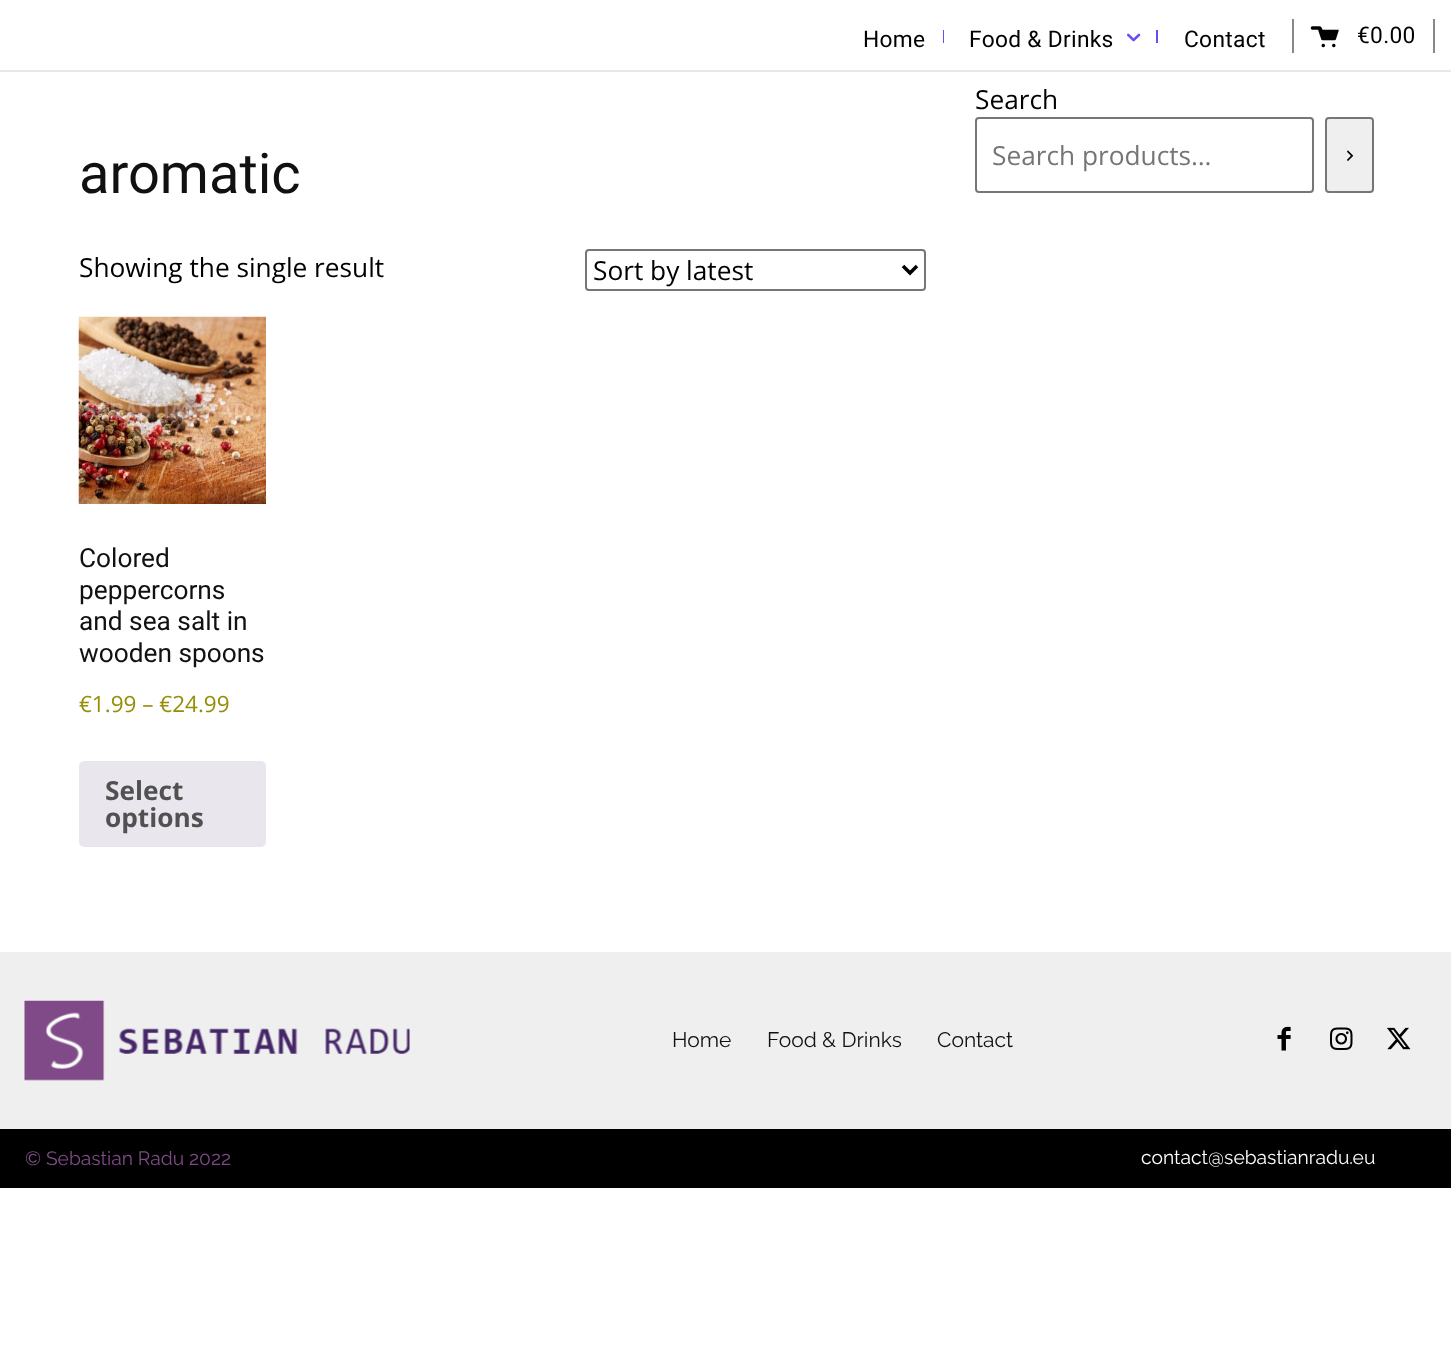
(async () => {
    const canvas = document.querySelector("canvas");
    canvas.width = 1451;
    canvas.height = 1353;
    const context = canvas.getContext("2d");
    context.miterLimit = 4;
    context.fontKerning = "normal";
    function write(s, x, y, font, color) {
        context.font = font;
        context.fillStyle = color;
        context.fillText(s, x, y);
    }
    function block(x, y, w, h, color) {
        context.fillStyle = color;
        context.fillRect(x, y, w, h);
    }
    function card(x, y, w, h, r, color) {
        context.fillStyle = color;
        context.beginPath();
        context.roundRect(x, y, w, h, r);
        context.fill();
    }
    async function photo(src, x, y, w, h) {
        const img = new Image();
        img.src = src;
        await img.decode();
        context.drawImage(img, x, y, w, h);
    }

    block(0, 0, 1451, 1353, "rgb(255, 255, 255)");
    context.letterSpacing = "0.3px";
    write("Home", 863, 47, "22.75px Heebo", "rgb(0, 0, 0)");
    block(943, 30, 1, 13, "rgb(107, 74, 249)");
    write("Food & Drinks", 969, 47, "22.75px Heebo", "rgb(0, 0, 0)");
    await photo("media/1.png", 1127, 33, 14, 9);
    block(1156, 30, 2, 13, "rgb(107, 74, 249)");
    write("Contact", 1184, 47, "22.75px Heebo", "rgb(0, 0, 0)");
    block(1433, 19, 2, 34, "rgb(136, 136, 136)");
    block(1292, 19, 2, 34, "rgb(136, 136, 136)");
    await photo("media/2.png", 1310, 26, 29, 22);
    write("€0.00", 1357, 43, "22.75px Heebo", "rgb(0, 0, 0)");
    block(0, 70, 1451, 2, "rgb(231, 231, 231)");
    context.letterSpacing = "0px";
    write("Search", 975, 109, "26.25px Open Sans", "rgb(0, 0, 0)");
    context.beginPath();
    context.roundRect(976, 118, 337, 74, 3);
    context.strokeStyle = "rgb(118, 118, 118)";
    context.lineWidth = 2;
    context.stroke();
    write("Search products…", 992, 165, "26.25px Open Sans", "rgb(117, 117, 117)");
    context.fillStyle = "rgb(239, 239, 239)";
    context.beginPath();
    context.roundRect(1326, 118, 47, 74, 3);
    context.fill();
    context.stroke();
    await photo("media/3.png", 1347, 150, 7, 12);
    write("aromatic", 79, 193, "56px Roboto", "rgb(17, 17, 17)");
    write("Showing the single result", 79, 277, "26.25px Open Sans", "rgb(0, 0, 0)");
    context.beginPath();
    context.roundRect(586, 250, 339, 40, 3);
    context.stroke();
    context.beginPath();
    context.moveTo(903, 266);
    context.lineTo(910, 273);
    context.lineTo(917, 266);
    context.strokeStyle = "rgb(0, 0, 0)";
    context.lineWidth = 3.5;
    context.stroke();
    write("Sort by latest", 593, 280, "26.25px Open Sans", "rgb(0, 0, 0)");
    await photo("media/4.png", 78, 316, 188, 188);
    write("Colored", 79, 567, "26.25px Roboto", "rgb(17, 17, 17)");
    write("peppercorns", 79, 599, "26.25px Roboto", "rgb(17, 17, 17)");
    write("and sea salt in", 79, 630, "26.25px Roboto", "rgb(17, 17, 17)");
    write("wooden spoons", 79, 662, "26.25px Roboto", "rgb(17, 17, 17)");
    write("€1.99 – €24.99", 79, 712, "22.5px Open Sans", "rgb(149, 142, 9)");
    card(79, 761, 187, 86, 5, "rgb(233, 230, 237)");
    write("Select", 105, 800, "bold 26.25px Open Sans", "rgb(81, 81, 81)");
    write("options", 105, 827, "bold 26.25px Open Sans", "rgb(81, 81, 81)");
    block(0, 952, 1451, 177, "rgb(239, 239, 239)");
    await photo("media/5.png", 24, 1000, 386, 81);
    write("Home", 672, 1047, "100 21px Raleway", "rgb(17, 17, 17)");
    write("Food & Drinks", 767, 1047, "100 21px Raleway", "rgb(17, 17, 17)");
    write("Contact", 937, 1047, "100 21px Raleway", "rgb(17, 17, 17)");
    await photo("media/6.png", 1277, 1026, 14, 25);
    await photo("media/7.png", 1330, 1027, 23, 23);
    await photo("media/8.png", 1387, 1027, 24, 23);
    block(0, 1129, 1451, 59, "rgb(0, 0, 0)");
    write("© Sebastian Radu 2022", 25, 1165, "100 19.25px Raleway", "rgb(128, 74, 136)");
    write("contact@sebastianradu.eu", 1141, 1164, "100 19.25px Raleway", "rgb(255, 255, 255)");
})();
